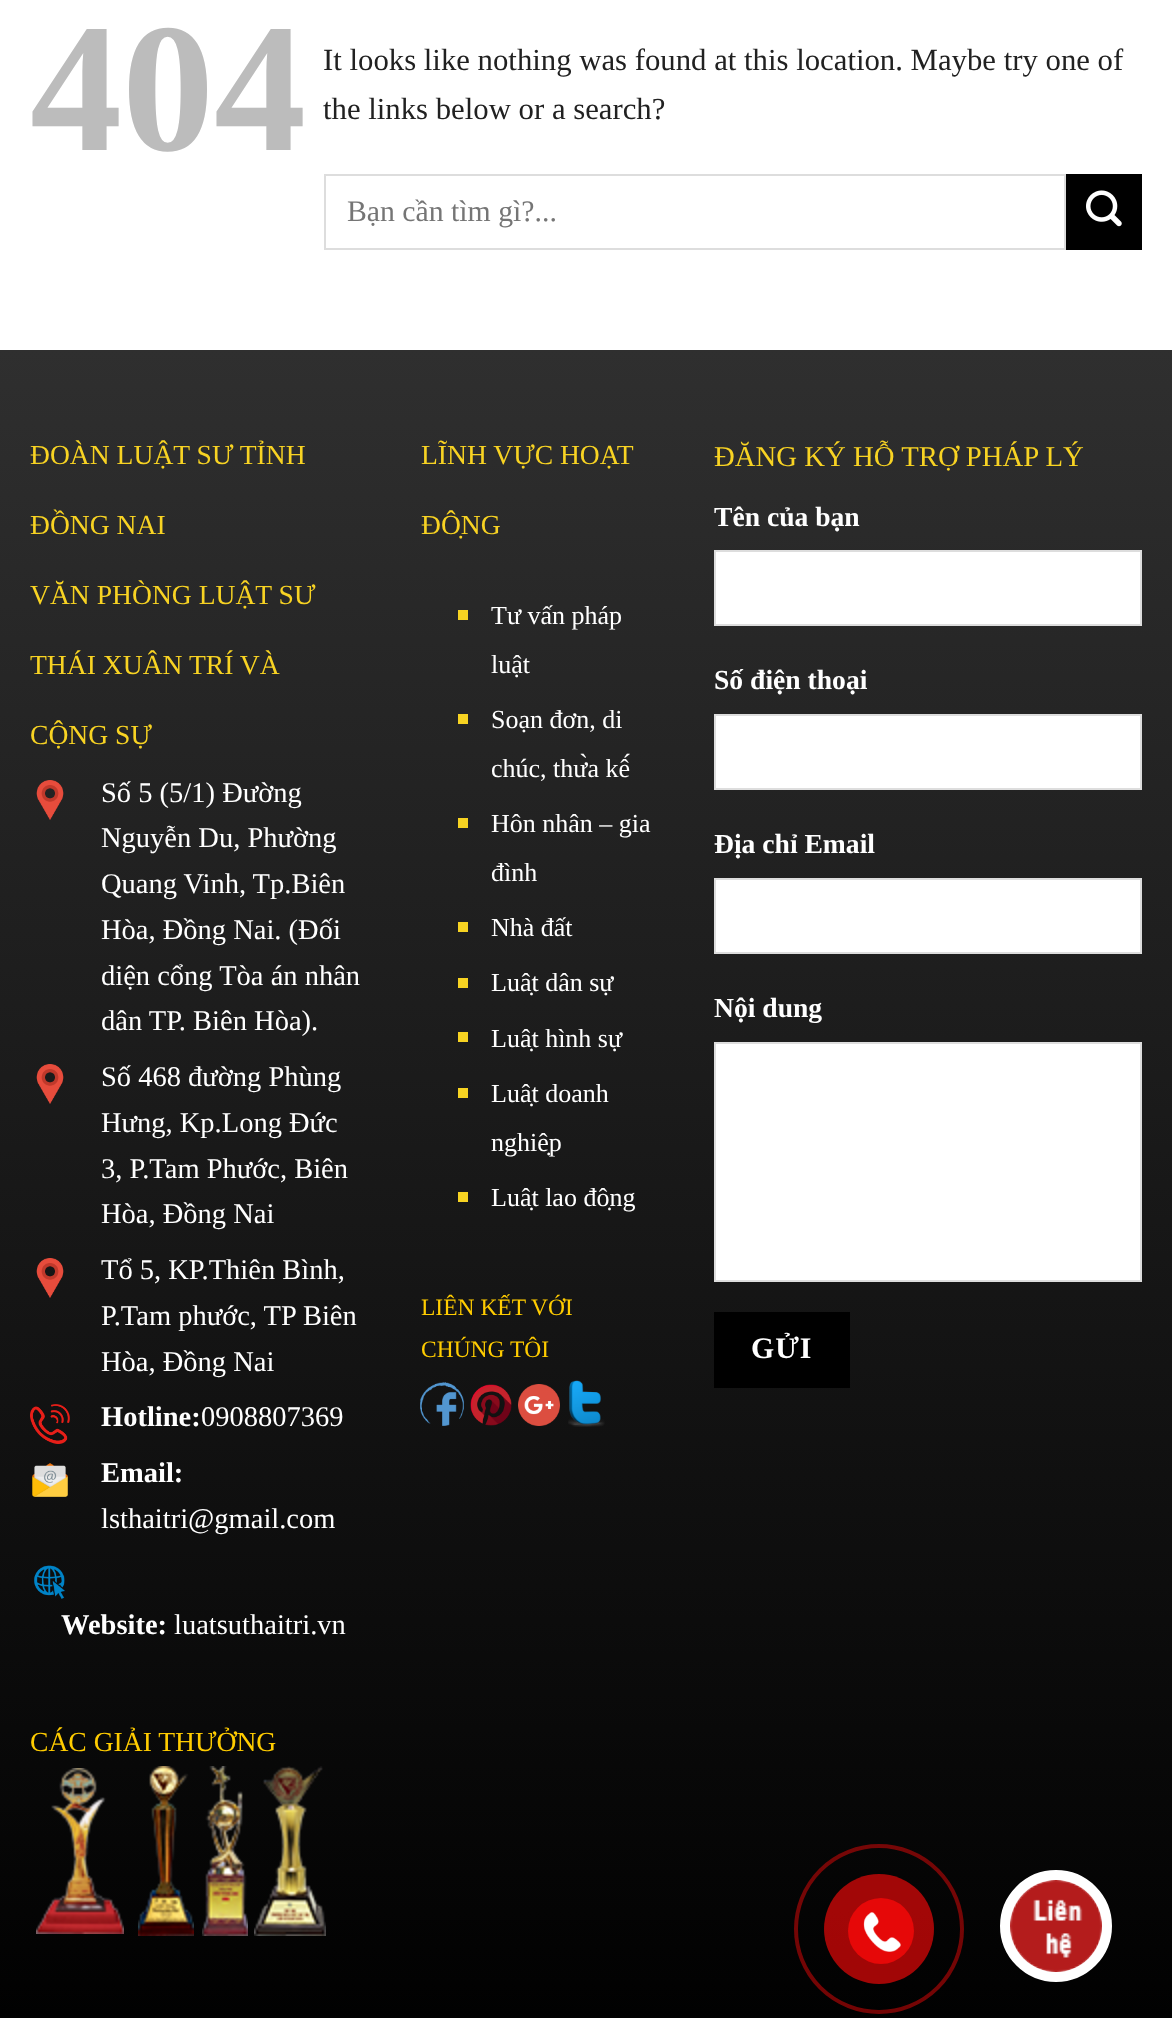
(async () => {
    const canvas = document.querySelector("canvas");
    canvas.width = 1172;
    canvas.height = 2018;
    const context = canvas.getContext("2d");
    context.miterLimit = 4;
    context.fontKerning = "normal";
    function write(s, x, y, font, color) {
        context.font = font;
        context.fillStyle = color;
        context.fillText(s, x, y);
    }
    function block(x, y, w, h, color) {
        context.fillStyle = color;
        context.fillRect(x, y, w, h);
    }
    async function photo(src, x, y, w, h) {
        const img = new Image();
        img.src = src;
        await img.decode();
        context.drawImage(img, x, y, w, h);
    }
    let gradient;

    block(0, 0, 1172, 2018, "rgb(255, 255, 255)");
    write("404", 30, 150, "bold 184px Liberation Serif", "rgb(188, 188, 188)");
    write("It looks like nothing was found at this location. Maybe try one of", 323, 70, "30.75px Liberation Serif", "rgb(33, 33, 33)");
    write("the links below or a search?", 323, 119, "30.75px Liberation Serif", "rgb(33, 33, 33)");
    context.strokeStyle = "rgb(221, 221, 221)";
    context.lineWidth = 2;
    context.strokeRect(325, 175, 740, 74);
    write("Bạn cần tìm gì?...", 347, 221, "29.75px Liberation Serif", "rgb(117, 117, 117)");
    block(1066, 174, 76, 76, "rgb(0, 0, 0)");
    await photo("media/1.png", 1086, 190, 36, 37);
    gradient = context.createLinearGradient(586, 350, 586, 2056);
    gradient.addColorStop(0, "rgb(47, 47, 47)");
    gradient.addColorStop(1, "rgb(0, 0, 0)");
    context.fillStyle = gradient;
    context.fillRect(0, 350, 1172, 1668);
    write("ĐOÀN LUẬT SƯ TỈNH", 30, 464, "27.6px Liberation Serif", "rgb(248, 211, 35)");
    write("ĐỒNG NAI", 30, 534, "27.6px Liberation Serif", "rgb(248, 211, 35)");
    write("VĂN PHÒNG LUẬT SƯ", 30, 604, "27.6px Liberation Serif", "rgb(248, 211, 35)");
    write("THÁI XUÂN TRÍ VÀ", 30, 674, "27.6px Liberation Serif", "rgb(248, 211, 35)");
    write("CỘNG SỰ", 30, 744, "27.6px Liberation Serif", "rgb(248, 211, 35)");
    await photo("media/2.png", 36, 780, 28, 40);
    write("Số 5 (5/1) Đường", 101, 802, "28.5px Liberation Serif", "rgb(255, 255, 255)");
    write("Nguyễn Du, Phường", 101, 847, "28.5px Liberation Serif", "rgb(255, 255, 255)");
    write("Quang Vinh, Tp.Biên", 101, 893, "28.5px Liberation Serif", "rgb(255, 255, 255)");
    write("Hòa, Đồng Nai. (Đối", 101, 939, "28.5px Liberation Serif", "rgb(255, 255, 255)");
    write("diện cổng Tòa án nhân", 101, 985, "28.5px Liberation Serif", "rgb(255, 255, 255)");
    write("dân TP. Biên Hòa).", 101, 1030, "28.5px Liberation Serif", "rgb(255, 255, 255)");
    await photo("media/3.png", 36, 1064, 28, 40);
    write("Số 468 đường Phùng", 101, 1086, "28.5px Liberation Serif", "rgb(255, 255, 255)");
    write("Hưng, Kp.Long Đức", 101, 1132, "28.5px Liberation Serif", "rgb(255, 255, 255)");
    write("3, P.Tam Phước, Biên", 101, 1178, "28.5px Liberation Serif", "rgb(255, 255, 255)");
    write("Hòa, Đồng Nai", 101, 1223, "28.5px Liberation Serif", "rgb(255, 255, 255)");
    await photo("media/4.png", 36, 1258, 28, 40);
    write("Tổ 5, KP.Thiên Bình,", 101, 1279, "28.5px Liberation Serif", "rgb(255, 255, 255)");
    write("P.Tam phước, TP Biên", 101, 1325, "28.5px Liberation Serif", "rgb(255, 255, 255)");
    write("Hòa, Đồng Nai", 101, 1371, "28.5px Liberation Serif", "rgb(255, 255, 255)");
    await photo("media/5.png", 30, 1404, 40, 40);
    write("Hotline:", 101, 1426, "bold 28.5px Liberation Serif", "rgb(255, 255, 255)");
    write("0908807369", 201, 1426, "28.5px Liberation Serif", "rgb(255, 255, 255)");
    await photo("media/6.png", 32, 1463, 36, 34);
    write("Email:", 101, 1482, "bold 28.5px Liberation Serif", "rgb(255, 255, 255)");
    write("lsthaitri@gmail.com", 101, 1528, "28.5px Liberation Serif", "rgb(255, 255, 255)");
    await photo("media/7.png", 34, 1565, 31, 34);
    write("Website:", 61, 1634, "bold 28.5px Liberation Serif", "rgb(255, 255, 255)");
    write("luatsuthaitri.vn", 174, 1634, "28.5px Liberation Serif", "rgb(255, 255, 255)");
    write("CÁC GIẢI THƯỞNG", 30, 1751, "27.6px Liberation Serif", "rgb(255, 204, 0)");
    await photo("media/8.png", 36, 1768, 88, 166);
    await photo("media/9.png", 138, 1766, 56, 170);
    await photo("media/10.png", 202, 1766, 46, 170);
    await photo("media/11.png", 254, 1766, 72, 170);
    write("LĨNH VỰC HOẠT", 421, 464, "27.6px Liberation Serif", "rgb(248, 211, 35)");
    write("ĐỘNG", 421, 534, "27.6px Liberation Serif", "rgb(248, 211, 35)");
    block(458, 610, 10, 10, "rgb(247, 211, 34)");
    write("Tư vấn pháp", 491, 624, "26px Liberation Serif", "rgb(255, 255, 255)");
    write("luật", 491, 673, "26px Liberation Serif", "rgb(255, 255, 255)");
    block(458, 714, 10, 10, "rgb(247, 211, 34)");
    write("Soạn đơn, di", 491, 728, "26px Liberation Serif", "rgb(255, 255, 255)");
    write("chúc, thừa kế", 491, 777, "26px Liberation Serif", "rgb(255, 255, 255)");
    block(458, 818, 10, 10, "rgb(247, 211, 34)");
    write("Hôn nhân – gia", 491, 832, "26px Liberation Serif", "rgb(255, 255, 255)");
    write("đình", 491, 881, "26px Liberation Serif", "rgb(255, 255, 255)");
    block(458, 922, 10, 10, "rgb(247, 211, 34)");
    write("Nhà đất", 491, 936, "26px Liberation Serif", "rgb(255, 255, 255)");
    block(458, 978, 10, 10, "rgb(247, 211, 34)");
    write("Luật dân sự", 491, 991, "26px Liberation Serif", "rgb(255, 255, 255)");
    block(458, 1032, 10, 10, "rgb(247, 211, 34)");
    write("Luật hình sự", 491, 1047, "26px Liberation Serif", "rgb(255, 255, 255)");
    block(458, 1088, 10, 10, "rgb(247, 211, 34)");
    write("Luật doanh", 491, 1102, "26px Liberation Serif", "rgb(255, 255, 255)");
    write("nghiệp", 491, 1151, "26px Liberation Serif", "rgb(255, 255, 255)");
    block(458, 1192, 10, 10, "rgb(247, 211, 34)");
    write("Luật lao động", 491, 1206, "26px Liberation Serif", "rgb(255, 255, 255)");
    write("LIÊN KẾT VỚI", 421, 1315, "23.5px Liberation Serif", "rgb(255, 204, 0)");
    write("CHÚNG TÔI", 421, 1357, "23.5px Liberation Serif", "rgb(255, 204, 0)");
    await photo("media/12.png", 420, 1382, 44, 44);
    await photo("media/13.png", 470, 1384, 42, 42);
    await photo("media/14.png", 518, 1384, 42, 42);
    await photo("media/15.png", 568, 1380, 37, 47);
    write("ĐĂNG KÝ HỖ TRỢ PHÁP LÝ", 714, 466, "28.75px Liberation Serif", "rgb(248, 211, 35)");
    write("Tên của bạn", 714, 526, "bold 27.6px Liberation Serif", "rgb(255, 255, 255)");
    context.beginPath();
    context.rect(715, 551, 426, 74);
    context.fill();
    context.stroke();
    write("Số điện thoại", 714, 689, "bold 27.6px Liberation Serif", "rgb(255, 255, 255)");
    context.beginPath();
    context.rect(715, 715, 426, 74);
    context.fill();
    context.stroke();
    write("Địa chỉ Email", 714, 853, "bold 27.6px Liberation Serif", "rgb(255, 255, 255)");
    context.beginPath();
    context.rect(715, 879, 426, 74);
    context.fill();
    context.stroke();
    write("Nội dung", 714, 1017, "bold 27.6px Liberation Serif", "rgb(255, 255, 255)");
    context.beginPath();
    context.rect(715, 1043, 426, 238);
    context.fill();
    context.stroke();
    block(714, 1312, 136, 76, "rgb(0, 0, 0)");
    context.letterSpacing = "1px";
    write("GỬI", 751, 1358, "bold 29.75px Liberation Serif", "rgb(255, 255, 255)");
    context.beginPath();
    context.arc(879, 1929, 83, 0, Math.PI * 2);
    context.strokeStyle = "rgba(230, 8, 8, 0.5)";
    context.lineWidth = 4;
    context.stroke();
    context.fillStyle = "rgba(230, 8, 8, 0.7)";
    context.beginPath();
    context.arc(879, 1929, 55, 0, Math.PI * 2);
    context.fill();
    context.fillStyle = "rgb(230, 8, 8)";
    context.beginPath();
    context.arc(881, 1931, 33, 0, Math.PI * 2);
    context.fill();
    await photo("media/16.png", 863, 1912, 38, 40);
    context.fillStyle = "rgb(255, 255, 255)";
    context.beginPath();
    context.arc(1056, 1926, 51, 0, Math.PI * 2);
    context.fill();
    context.strokeStyle = "rgb(255, 255, 255)";
    context.lineWidth = 10;
    context.stroke();
    await photo("media/17.png", 1010, 1880, 92, 92);
})();
